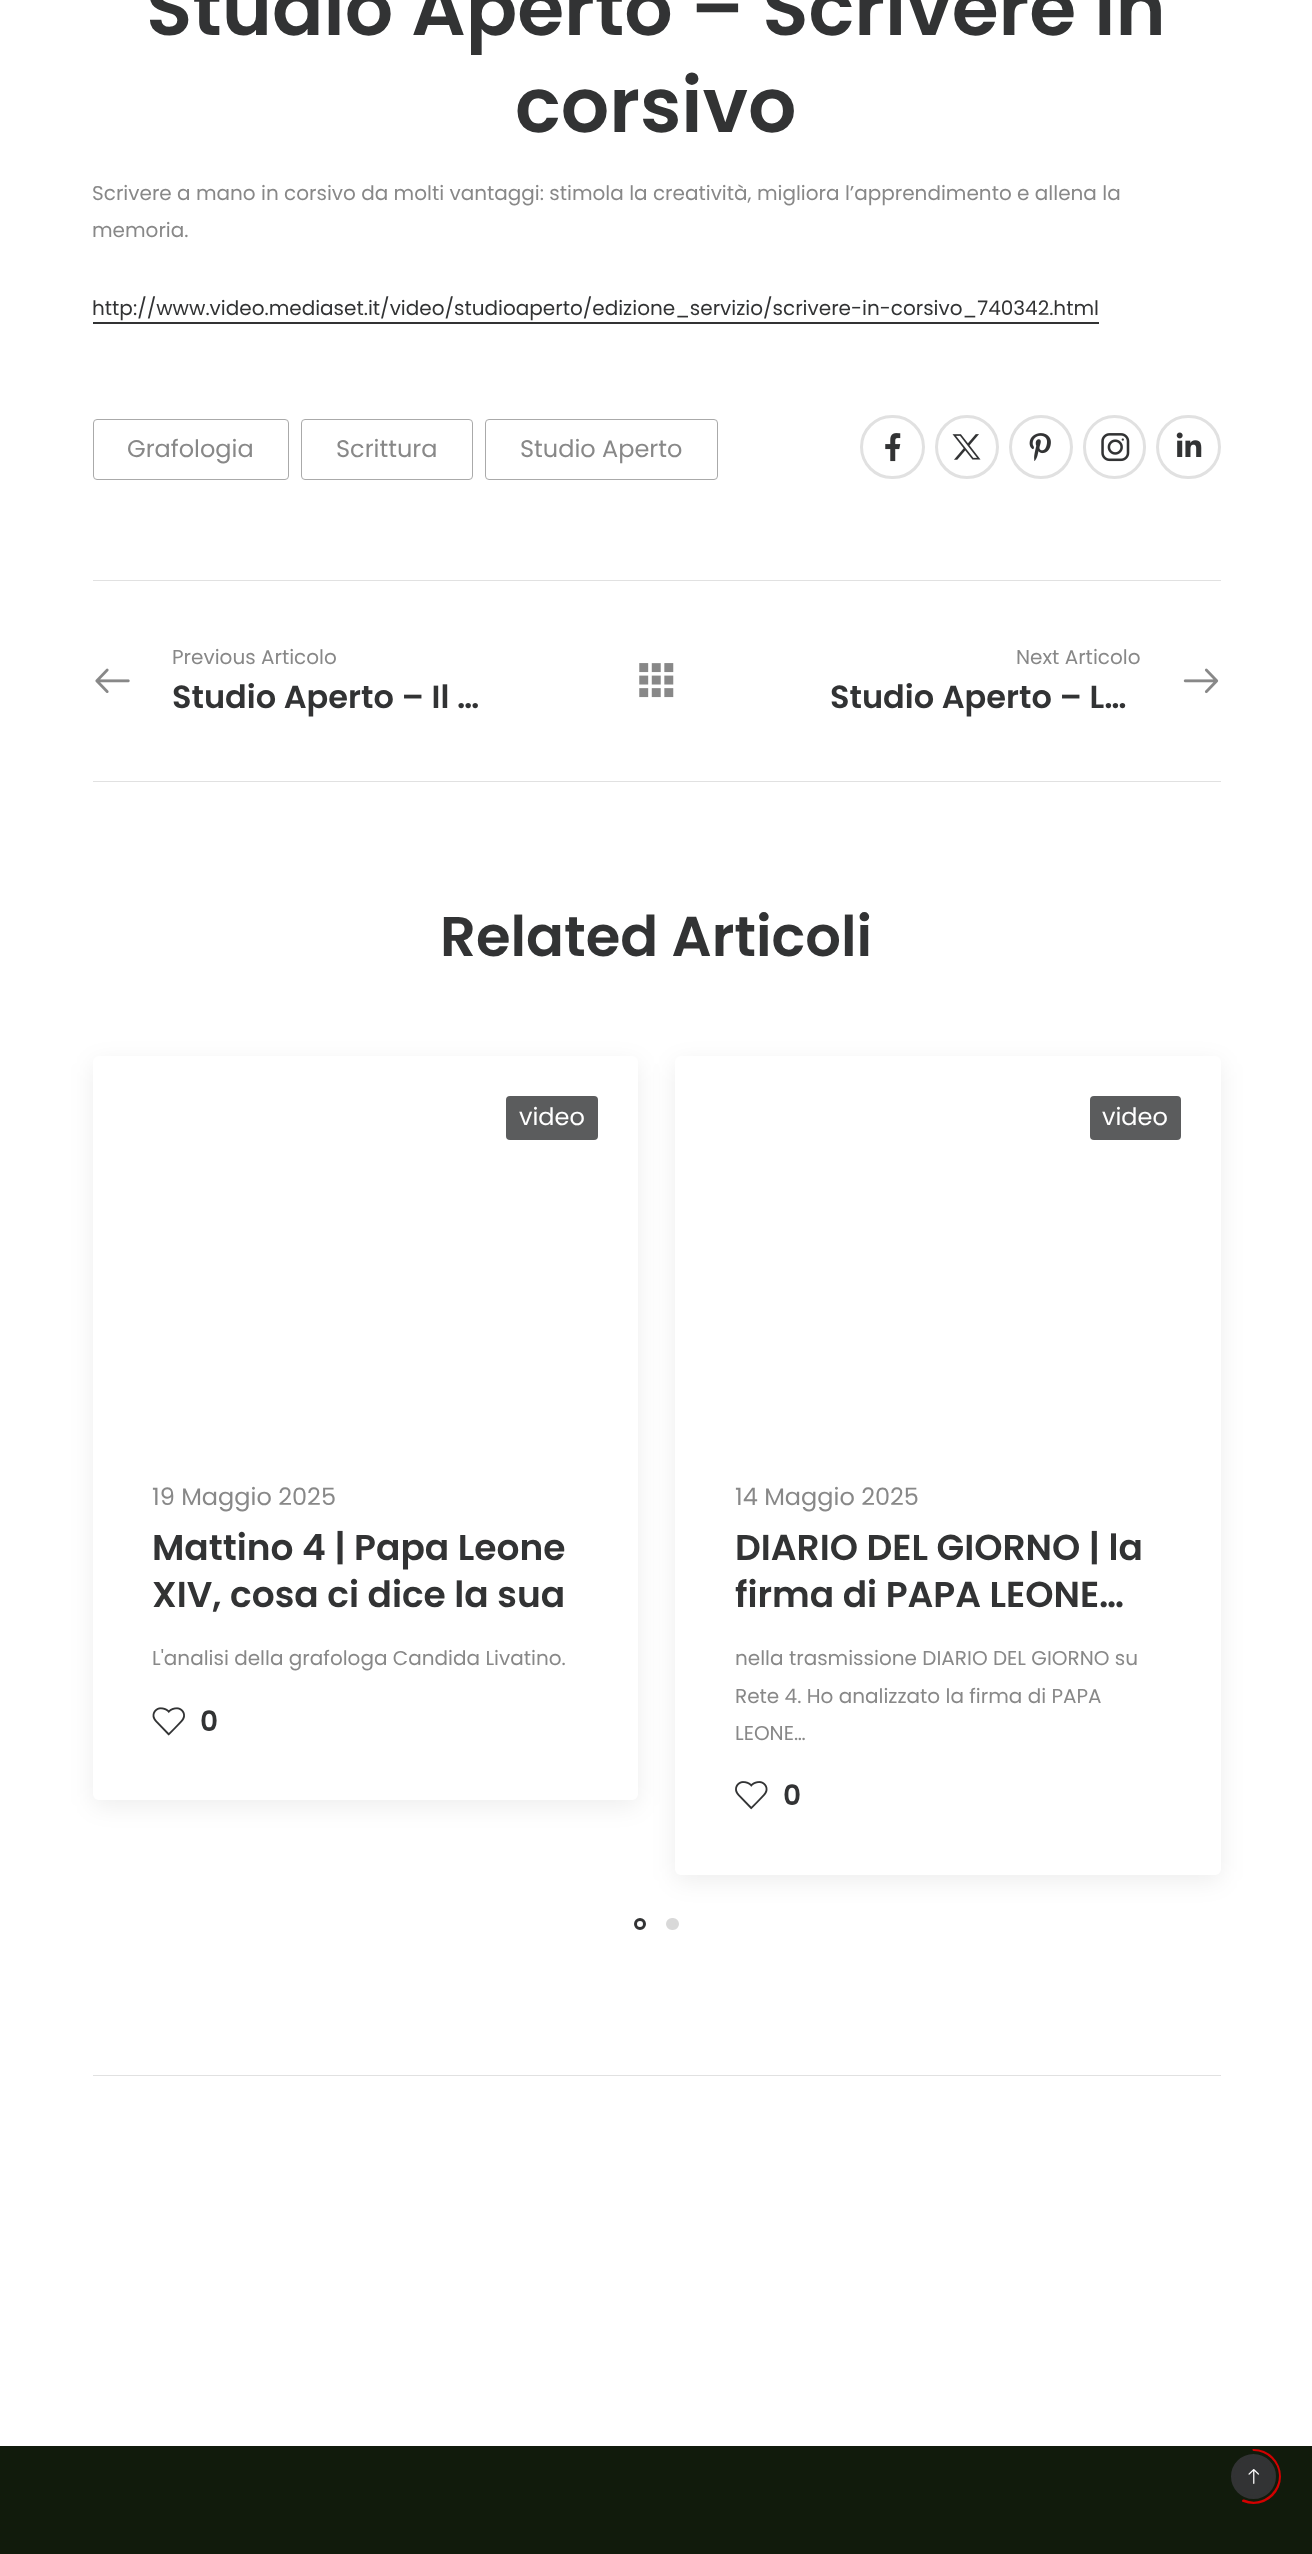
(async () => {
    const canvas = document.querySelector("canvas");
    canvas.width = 1312;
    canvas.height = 2554;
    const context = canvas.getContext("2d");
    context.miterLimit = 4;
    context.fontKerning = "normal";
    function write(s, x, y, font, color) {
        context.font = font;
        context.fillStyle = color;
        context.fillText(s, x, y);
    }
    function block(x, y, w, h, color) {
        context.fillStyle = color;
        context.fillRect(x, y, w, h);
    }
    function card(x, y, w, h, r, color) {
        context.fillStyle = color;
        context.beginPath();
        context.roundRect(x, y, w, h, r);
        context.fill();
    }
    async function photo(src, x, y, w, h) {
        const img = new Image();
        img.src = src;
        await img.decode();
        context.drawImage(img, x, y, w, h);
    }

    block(0, 0, 1312, 2554, "rgb(255, 255, 255)");
    write("Studio Aperto – Scrivere in", 146, 35, "600 76px Poppins", "rgb(50, 51, 52)");
    write("corsivo", 515, 132, "600 76px Poppins", "rgb(50, 51, 52)");
    write("Scrivere a mano in corsivo da molti vantaggi: stimola la creatività, migliora l’apprendimento e allena la", 92, 200, "20px Poppins", "rgb(136, 136, 136)");
    write("memoria.", 92, 237, "20px Poppins", "rgb(136, 136, 136)");
    write("http://www.video.mediaset.it/video/studioaperto/edizione_servizio/scrivere-in-corsivo_740342.html", 92, 315, "20px Poppins", "rgb(50, 51, 52)");
    context.beginPath();
    context.moveTo(93, 322);
    context.lineTo(93, 324);
    context.lineTo(1099, 324);
    context.lineTo(1099, 295);
    context.lineTo(1099, 322);
    context.closePath();
    context.fill();
    context.beginPath();
    context.roundRect(93.5, 419.5, 195, 60, 3.5);
    context.strokeStyle = "rgb(170, 170, 170)";
    context.stroke();
    write("Grafologia", 127, 457, "24px Poppins", "rgb(136, 136, 136)");
    context.beginPath();
    context.roundRect(301.5, 419.5, 171, 60, 3.5);
    context.stroke();
    write("Scrittura", 336, 457, "24px Poppins", "rgb(136, 136, 136)");
    context.beginPath();
    context.roundRect(485.5, 419.5, 232, 60, 3.5);
    context.stroke();
    write("Studio Aperto", 520, 457, "24px Poppins", "rgb(136, 136, 136)");
    context.beginPath();
    context.roundRect(861.5, 416.5, 62, 61, 30.5);
    context.strokeStyle = "rgb(225, 225, 225)";
    context.lineWidth = 3;
    context.stroke();
    await photo("media/1.png", 885, 433, 16, 29);
    context.beginPath();
    context.arc(967, 447, 30.5, 0, Math.PI * 2);
    context.stroke();
    await photo("media/2.png", 952, 434, 29, 26);
    context.beginPath();
    context.arc(1041, 447, 30.5, 0, Math.PI * 2);
    context.stroke();
    await photo("media/3.png", 1029, 433, 22, 28);
    context.beginPath();
    context.roundRect(1084.5, 416.5, 60, 61, 30);
    context.stroke();
    await photo("media/4.png", 1101, 433, 29, 29);
    context.beginPath();
    context.roundRect(1157.5, 416.5, 62, 61, 30.5);
    context.stroke();
    await photo("media/5.png", 1176, 432, 26, 25);
    block(93, 580, 1128, 1, "rgb(225, 225, 225)");
    write("Previous Articolo", 172, 664, "20px Poppins", "rgb(136, 136, 136)");
    await photo("media/6.png", 95, 668, 35, 25);
    write("Studio Aperto – Il …", 172, 708, "600 32px Poppins", "rgb(50, 51, 52)");
    write("Next Articolo", 1016, 664, "20px Poppins", "rgb(136, 136, 136)");
    write("Studio Aperto – L…", 830, 708, "600 32px Poppins", "rgb(50, 51, 52)");
    await photo("media/7.png", 1183, 668, 36, 26);
    await photo("media/8.png", 639, 663, 35, 35);
    block(93, 781, 1128, 1, "rgb(225, 225, 225)");
    write("Related Articoli", 440, 956, "600 56px Poppins", "rgb(50, 51, 52)");
    context.fillStyle = "rgba(0, 0, 0, 0.07)";
    context.filter = "blur(12.5px)";
    context.beginPath();
    context.roundRect(93, 1063, 545, 743, 6);
    context.fill();
    context.filter = "none";
    card(93, 1056, 545, 744, 6, "rgb(255, 255, 255)");
    card(506, 1096, 92, 44, 4, "rgb(91, 92, 93)");
    write("video", 519, 1125, "24px Poppins", "rgb(255, 255, 255)");
    write("19 Maggio 2025", 152, 1505, "24px Poppins", "rgb(136, 136, 136)");
    write("Mattino 4 | Papa Leone", 152, 1560, "600 36px Poppins", "rgb(50, 51, 52)");
    write("XIV, cosa ci dice la sua", 152, 1607, "600 36px Poppins", "rgb(50, 51, 52)");
    write("L'analisi della grafologa Candida Livatino.", 152, 1665, "20px Poppins", "rgb(136, 136, 136)");
    await photo("media/9.png", 152, 1707, 33, 29);
    write("0", 200, 1731, "600 28px Poppins", "rgb(50, 51, 52)");
    context.fillStyle = "rgba(0, 0, 0, 0.07)";
    context.filter = "blur(12.5px)";
    context.beginPath();
    context.roundRect(675, 1063, 546, 818, 6);
    context.fill();
    context.filter = "none";
    card(675, 1056, 546, 819, 6, "rgb(255, 255, 255)");
    card(1090, 1096, 91, 44, 4, "rgb(91, 92, 93)");
    write("video", 1102, 1125, "24px Poppins", "rgb(255, 255, 255)");
    write("14 Maggio 2025", 735, 1505, "24px Poppins", "rgb(136, 136, 136)");
    write("DIARIO DEL GIORNO | la", 735, 1560, "600 36px Poppins", "rgb(50, 51, 52)");
    write("firma di PAPA LEONE…", 735, 1607, "600 36px Poppins", "rgb(50, 51, 52)");
    write("nella trasmissione DIARIO DEL GIORNO su", 735, 1665, "20px Poppins", "rgb(136, 136, 136)");
    write("Rete 4. Ho analizzato la firma di PAPA", 735, 1703, "20px Poppins", "rgb(136, 136, 136)");
    write("LEONE…", 735, 1740, "20px Poppins", "rgb(136, 136, 136)");
    await photo("media/10.png", 735, 1781, 33, 29);
    write("0", 783, 1805, "600 28px Poppins", "rgb(50, 51, 52)");
    context.beginPath();
    context.arc(640, 1924, 4.5, 0, Math.PI * 2);
    context.strokeStyle = "rgb(50, 51, 52)";
    context.stroke();
    context.fillStyle = "rgb(217, 217, 217)";
    context.beginPath();
    context.roundRect(667.5, 1919.5, 10, 9, 4.5);
    context.fill();
    context.strokeStyle = "rgb(217, 217, 217)";
    context.stroke();
    block(93, 2075, 1128, 1, "rgb(225, 225, 225)");
    block(0, 2446, 1312, 108, "rgb(17, 27, 12)");
    context.save();
    context.beginPath();
    context.roundRect(1226, 2449, 55, 55, 27.5);
    context.clip();
    context.beginPath();
    context.moveTo(1254, 2449.5);
    context.bezierCurveTo(1261, 2449.5, 1267.5, 2452.5, 1272.5, 2457.5);
    context.bezierCurveTo(1293.5, 2478.5, 1269.5, 2512, 1243.5, 2501);
    context.strokeStyle = "rgb(210, 1, 0)";
    context.lineWidth = 3.1;
    context.lineCap = "round";
    context.stroke();
    context.restore();
    context.fillStyle = "rgb(50, 51, 52)";
    context.beginPath();
    context.arc(1253.5, 2476.5, 21, 0, Math.PI * 2);
    context.fill();
    context.strokeStyle = "rgb(50, 51, 52)";
    context.stroke();
    await photo("media/11.png", 1248, 2469, 12, 15);
})();
